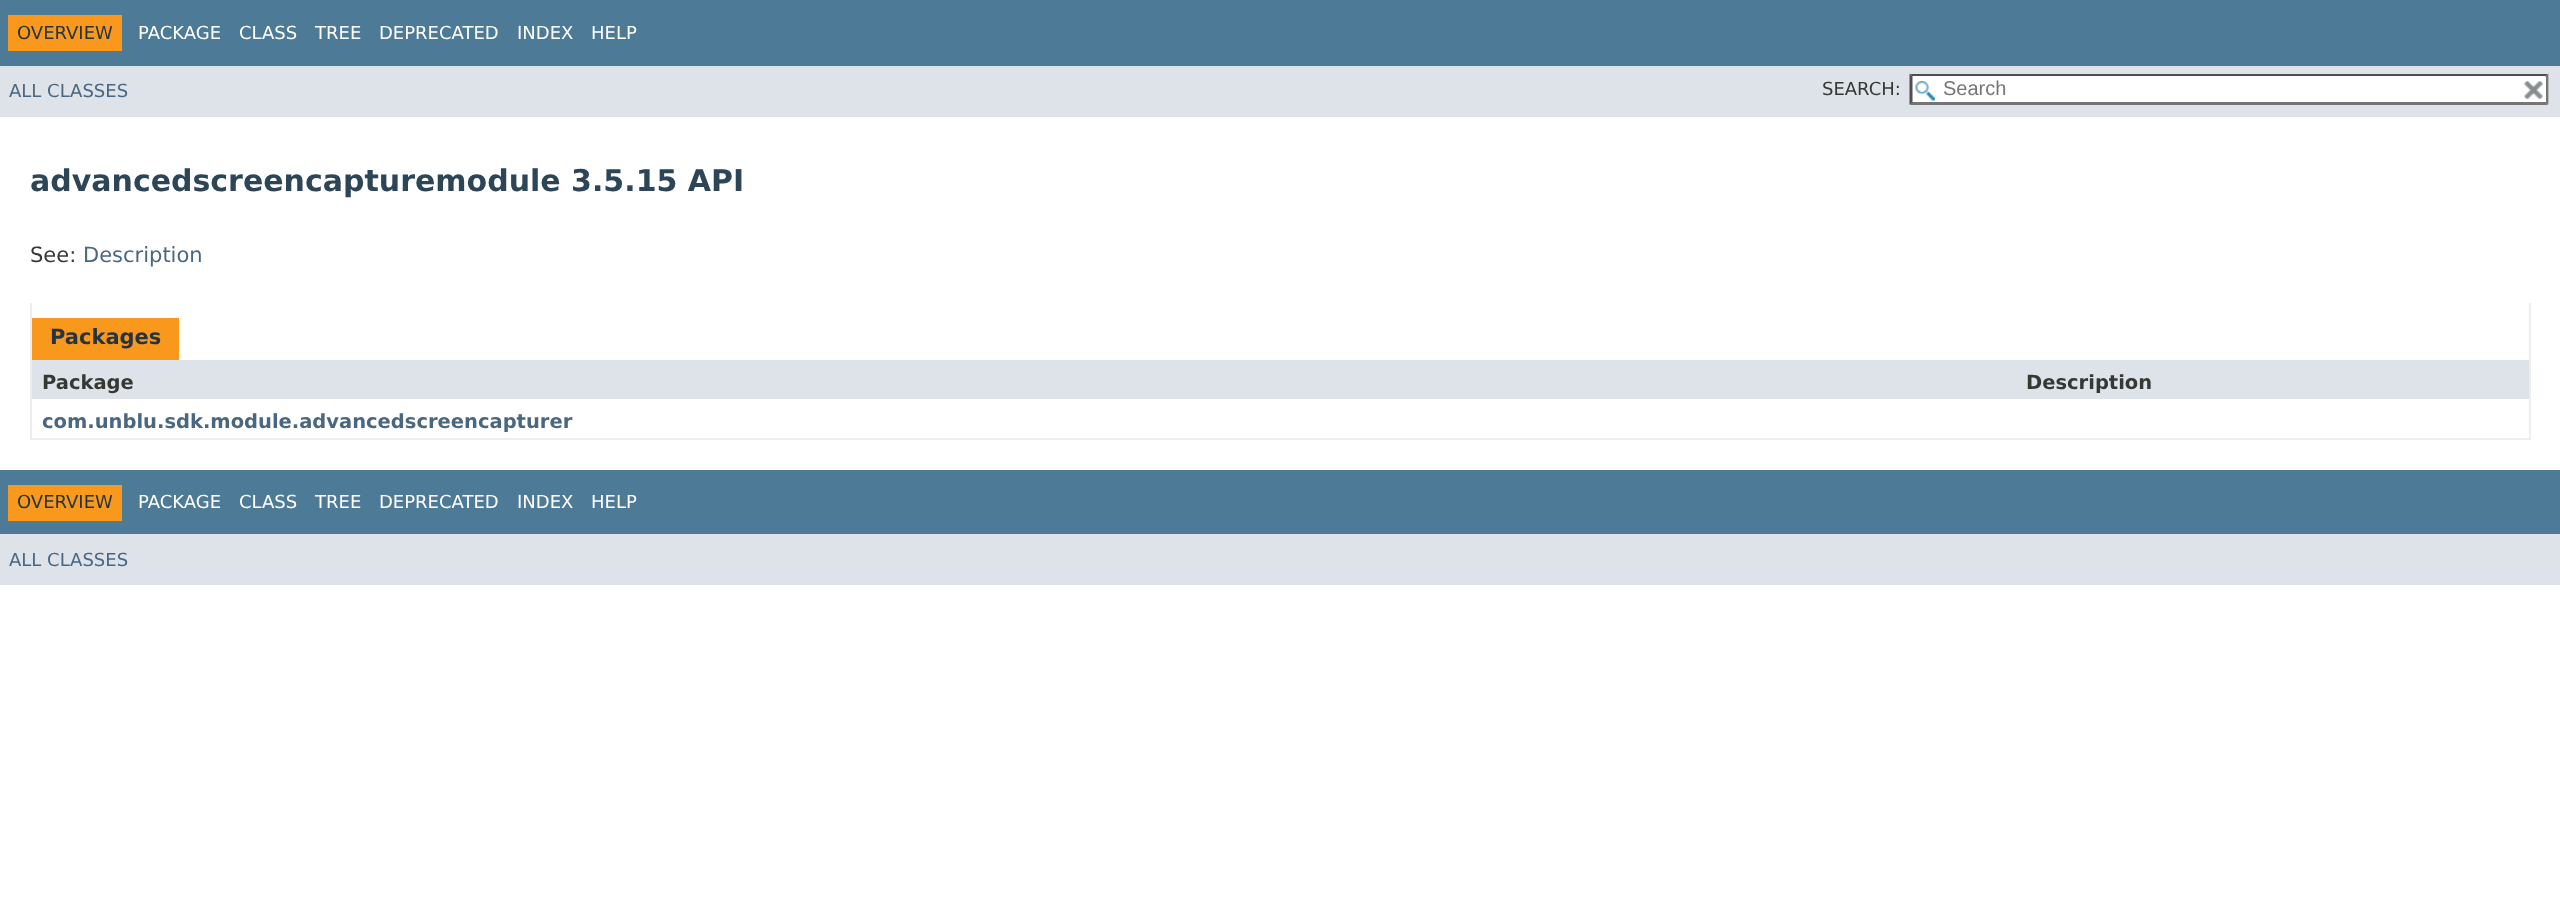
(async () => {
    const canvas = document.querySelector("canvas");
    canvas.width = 2560;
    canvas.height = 901;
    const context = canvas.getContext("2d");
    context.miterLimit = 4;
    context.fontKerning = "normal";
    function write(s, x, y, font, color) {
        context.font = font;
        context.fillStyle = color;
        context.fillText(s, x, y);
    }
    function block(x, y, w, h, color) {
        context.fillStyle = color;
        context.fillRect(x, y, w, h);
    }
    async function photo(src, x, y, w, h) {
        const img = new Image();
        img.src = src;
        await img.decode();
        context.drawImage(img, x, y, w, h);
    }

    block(0, 0, 2560, 901, "rgb(255, 255, 255)");
    block(0, 0, 2560, 66, "rgb(77, 122, 151)");
    block(8, 15, 114, 36, "rgb(248, 152, 29)");
    write("OVERVIEW", 17, 39, "18px DejaVu Sans", "rgb(37, 52, 65)");
    write("PACKAGE", 138, 39, "18px DejaVu Sans", "rgb(255, 255, 255)");
    write("CLASS", 239, 39, "18px DejaVu Sans", "rgb(255, 255, 255)");
    write("TREE", 315, 39, "18px DejaVu Sans", "rgb(255, 255, 255)");
    write("DEPRECATED", 379, 39, "18px DejaVu Sans", "rgb(255, 255, 255)");
    write("INDEX", 517, 39, "18px DejaVu Sans", "rgb(255, 255, 255)");
    write("HELP", 591, 39, "18px DejaVu Sans", "rgb(255, 255, 255)");
    block(0, 66, 2560, 51, "rgb(222, 227, 233)");
    write("ALL CLASSES", 9, 97, "18px DejaVu Sans", "rgb(74, 103, 130)");
    write("SEARCH:", 1822, 95, "18px DejaVu Sans", "rgb(53, 56, 51)");
    block(1910, 74, 639, 31, "rgb(255, 255, 255)");
    await photo("media/1.png", 1915, 81, 20, 20);
    context.fillStyle = "rgb(79, 79, 79)";
    context.beginPath();
    context.moveTo(1910, 74);
    context.lineTo(2548, 74);
    context.lineTo(2546, 76);
    context.lineTo(1912, 76);
    context.closePath();
    context.fill();
    context.fillStyle = "rgb(118, 118, 118)";
    context.beginPath();
    context.moveTo(2548.5, 73.5);
    context.lineTo(2548.5, 105);
    context.lineTo(2545.5, 102);
    context.lineTo(2545.5, 76.5);
    context.closePath();
    context.fill();
    context.beginPath();
    context.moveTo(2548, 105);
    context.lineTo(1910, 105);
    context.lineTo(1912, 102);
    context.lineTo(2546, 102);
    context.closePath();
    context.fill();
    context.fillStyle = "rgb(79, 79, 79)";
    context.beginPath();
    context.moveTo(1909.5, 105);
    context.lineTo(1909.5, 73.5);
    context.lineTo(1912.5, 76.5);
    context.lineTo(1912.5, 102);
    context.closePath();
    context.fill();
    write("Search", 1943, 95, "20px Liberation Sans", "rgb(117, 117, 117)");
    block(2545, 77, 1, 25, "rgb(255, 255, 255)");
    await photo("media/2.png", 2523, 81, 20, 19);
    write("advancedscreencapturemodule 3.5.15 API", 30, 191, "bold 30px DejaVu Sans", "rgb(44, 69, 87)");
    write("See:", 30, 262, "21px DejaVu Sans", "rgb(53, 56, 51)");
    write("Description", 83, 262, "21px DejaVu Sans", "rgb(74, 103, 130)");
    block(2529, 303, 2, 137, "rgb(238, 238, 238)");
    block(30, 438, 2501, 2, "rgb(238, 238, 238)");
    block(30, 303, 2, 137, "rgb(238, 238, 238)");
    block(32, 318, 147, 42, "rgb(248, 152, 29)");
    write("Packages", 50, 344, "bold 21px DejaVu Sans", "rgb(37, 52, 65)");
    block(32, 360, 2497, 39, "rgb(222, 227, 233)");
    write("Package", 42, 389, "bold 19.5px DejaVu Sans", "rgb(53, 56, 51)");
    write("Description", 2026, 389, "bold 19.5px DejaVu Sans", "rgb(53, 56, 51)");
    write("com.unblu.sdk.module.advancedscreencapturer", 42, 428, "bold 19.5px DejaVu Sans", "rgb(74, 103, 130)");
    block(0, 470, 2560, 64, "rgb(77, 122, 151)");
    block(8, 485, 114, 36, "rgb(248, 152, 29)");
    write("OVERVIEW", 17, 508, "18px DejaVu Sans", "rgb(37, 52, 65)");
    write("PACKAGE", 138, 508, "18px DejaVu Sans", "rgb(255, 255, 255)");
    write("CLASS", 239, 508, "18px DejaVu Sans", "rgb(255, 255, 255)");
    write("TREE", 315, 508, "18px DejaVu Sans", "rgb(255, 255, 255)");
    write("DEPRECATED", 379, 508, "18px DejaVu Sans", "rgb(255, 255, 255)");
    write("INDEX", 517, 508, "18px DejaVu Sans", "rgb(255, 255, 255)");
    write("HELP", 591, 508, "18px DejaVu Sans", "rgb(255, 255, 255)");
    block(0, 534, 2560, 51, "rgb(222, 227, 233)");
    write("ALL CLASSES", 9, 566, "18px DejaVu Sans", "rgb(74, 103, 130)");
})();
